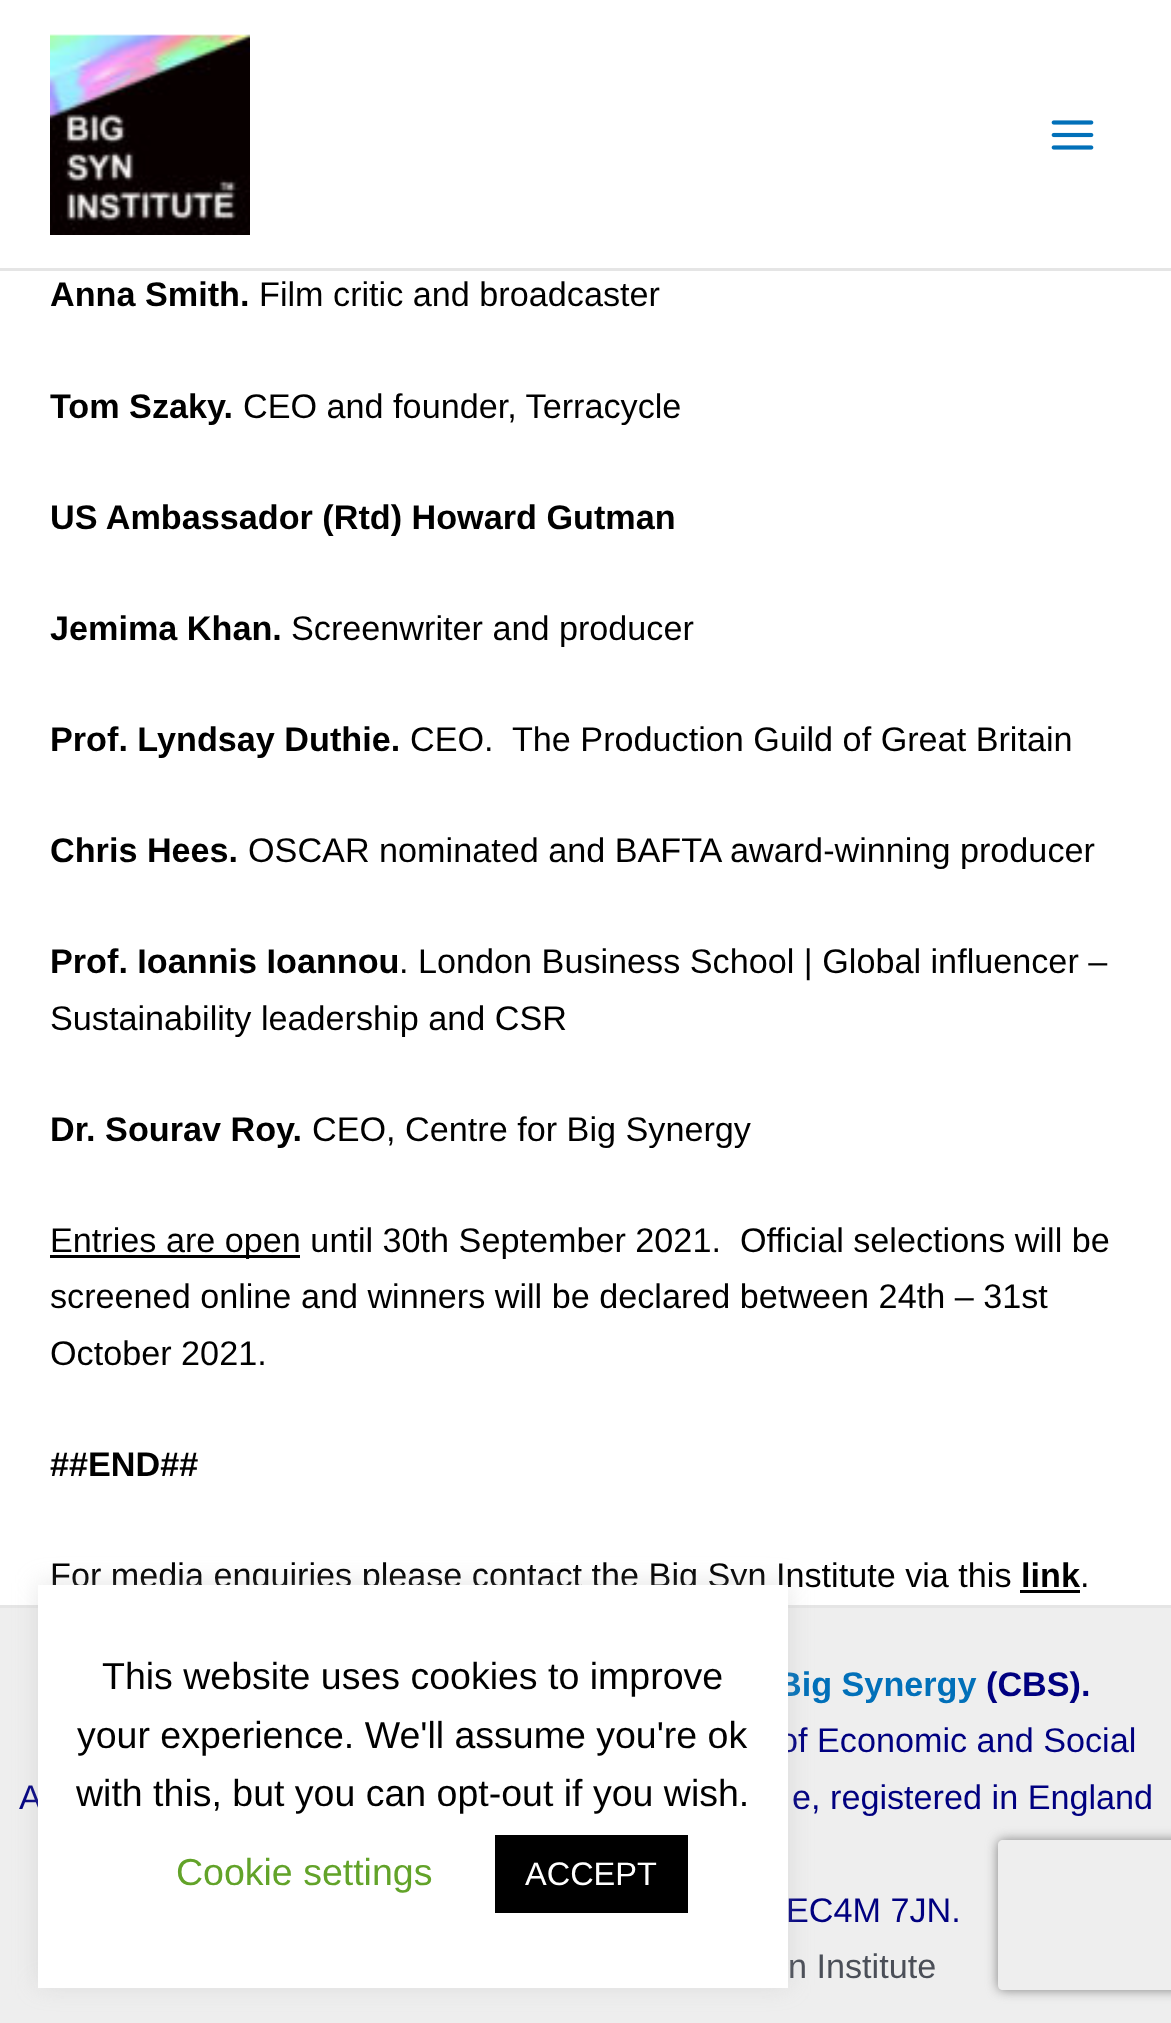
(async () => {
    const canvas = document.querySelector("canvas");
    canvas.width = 1171;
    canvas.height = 2023;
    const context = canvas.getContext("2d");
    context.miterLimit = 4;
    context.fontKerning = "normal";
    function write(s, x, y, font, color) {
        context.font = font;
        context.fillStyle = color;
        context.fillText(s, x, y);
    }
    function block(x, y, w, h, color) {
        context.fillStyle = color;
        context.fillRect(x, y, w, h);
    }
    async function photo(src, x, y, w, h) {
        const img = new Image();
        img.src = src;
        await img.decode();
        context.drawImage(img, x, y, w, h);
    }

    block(0, 0, 1171, 2023, "rgb(255, 255, 255)");
    block(0, 268, 1171, 3, "rgb(229, 229, 229)");
    await photo("media/1.png", 50, 34, 200, 201);
    await photo("media/2.png", 1051, 120, 43, 30);
    write("Anna Smith.", 50, 306, "bold 34.2px Liberation Sans", "rgb(0, 0, 0)");
    write("Film critic and broadcaster", 259, 306, "34.2px Liberation Sans", "rgb(0, 0, 0)");
    write("Tom Szaky.", 50, 418, "bold 34.2px Liberation Sans", "rgb(0, 0, 0)");
    write("CEO and founder, Terracycle", 243, 418, "34.2px Liberation Sans", "rgb(0, 0, 0)");
    write("US Ambassador (Rtd) Howard Gutman", 50, 529, "bold 34.2px Liberation Sans", "rgb(0, 0, 0)");
    write("Jemima Khan.", 50, 640, "bold 34.2px Liberation Sans", "rgb(0, 0, 0)");
    write("Screenwriter and producer", 291, 640, "34.2px Liberation Sans", "rgb(0, 0, 0)");
    write("Prof. Lyndsay Duthie.", 50, 751, "bold 34.2px Liberation Sans", "rgb(0, 0, 0)");
    write("CEO.  The Production Guild of Great Britain", 410, 751, "34.2px Liberation Sans", "rgb(0, 0, 0)");
    write("Chris Hees.", 50, 862, "bold 34.2px Liberation Sans", "rgb(0, 0, 0)");
    write("OSCAR nominated and BAFTA award-winning producer", 248, 862, "34.2px Liberation Sans", "rgb(0, 0, 0)");
    write("Prof. Ioannis Ioannou", 50, 973, "bold 34.2px Liberation Sans", "rgb(0, 0, 0)");
    write(". London Business School | Global influencer –", 399, 973, "34.2px Liberation Sans", "rgb(0, 0, 0)");
    write("Sustainability leadership and CSR", 50, 1030, "34.2px Liberation Sans", "rgb(0, 0, 0)");
    write("Dr. Sourav Roy.", 50, 1141, "bold 34.2px Liberation Sans", "rgb(0, 0, 0)");
    write("CEO, Centre for Big Synergy", 312, 1141, "34.2px Liberation Sans", "rgb(0, 0, 0)");
    block(50, 1255, 250, 3, "rgb(0, 0, 0)");
    write("Entries are open until 30th September 2021.  Official selections will be", 50, 1252, "34.2px Liberation Sans", "rgb(0, 0, 0)");
    write("screened online and winners will be declared between 24th – 31st", 50, 1308, "34.2px Liberation Sans", "rgb(0, 0, 0)");
    write("October 2021.", 50, 1365, "34.2px Liberation Sans", "rgb(0, 0, 0)");
    write("##END##", 50, 1476, "bold 34.2px Liberation Sans", "rgb(0, 0, 0)");
    write("For media enquiries please contact the Big Syn Institute via this", 50, 1587, "34.2px Liberation Sans", "rgb(0, 0, 0)");
    write("link", 1021, 1587, "bold 34.2px Liberation Sans", "rgb(0, 0, 0)");
    write(".", 1080, 1587, "34.2px Liberation Sans", "rgb(0, 0, 0)");
    block(1020, 1590, 60, 3, "rgb(0, 0, 0)");
    block(0, 1608, 1171, 415, "rgb(238, 238, 238)");
    block(0, 1605, 1171, 3, "rgb(229, 229, 229)");
    write("Big Synergy", 777, 1696, "bold 34.2px Liberation Sans", "rgb(1, 112, 185)");
    write("(CBS).", 986, 1696, "bold 34.2px Liberation Sans", "rgb(0, 0, 128)");
    write("of Economic and Social", 779, 1752, "34.2px Liberation Sans", "rgb(0, 0, 128)");
    write("A", 19, 1809, "34.2px Liberation Sans", "rgb(0, 0, 128)");
    write("e, registered in England", 792, 1809, "34.2px Liberation Sans", "rgb(0, 0, 128)");
    write("EC4M 7JN.", 786, 1922, "34.2px Liberation Sans", "rgb(0, 0, 128)");
    write("n Institute", 788, 1978, "34.2px Liberation Sans", "rgb(75, 79, 88)");
    context.fillStyle = "rgba(172, 171, 171, 0.3)";
    context.filter = "blur(12.5px)";
    context.beginPath();
    context.rect(38, 1583, 750, 402);
    context.fill();
    context.filter = "none";
    block(38, 1585, 750, 403, "rgb(255, 255, 255)");
    write("This website uses cookies to improve", 102, 1689, "37.5px Liberation Sans", "rgb(0, 0, 0)");
    write("your experience. We'll assume you're ok", 77, 1748, "37.5px Liberation Sans", "rgb(0, 0, 0)");
    write("with this, but you can opt-out if you wish.", 76, 1806, "37.5px Liberation Sans", "rgb(0, 0, 0)");
    write("Cookie settings", 176, 1885, "37.5px Liberation Sans", "rgb(98, 163, 41)");
    block(495, 1835, 193, 78, "rgb(0, 0, 0)");
    write("ACCEPT", 525, 1885, "32.5px Liberation Sans", "rgb(255, 255, 255)");
    context.save();
    context.beginPath();
    context.moveTo(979, 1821);
    context.lineTo(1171, 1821);
    context.lineTo(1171, 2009);
    context.lineTo(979, 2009);
    context.closePath();
    context.moveTo(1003, 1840);
    context.lineTo(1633, 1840);
    context.bezierCurveTo(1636, 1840, 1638, 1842, 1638, 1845);
    context.lineTo(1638, 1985);
    context.bezierCurveTo(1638, 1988, 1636, 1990, 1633, 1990);
    context.lineTo(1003, 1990);
    context.bezierCurveTo(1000, 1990, 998, 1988, 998, 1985);
    context.lineTo(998, 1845);
    context.bezierCurveTo(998, 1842, 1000, 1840, 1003, 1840);
    context.closePath();
    context.clip("evenodd");
    context.fillStyle = "rgb(128, 128, 128)";
    context.filter = "blur(6px)";
    context.beginPath();
    context.roundRect(998, 1840, 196, 150, 5);
    context.fill();
    context.filter = "none";
    context.restore();
})();
